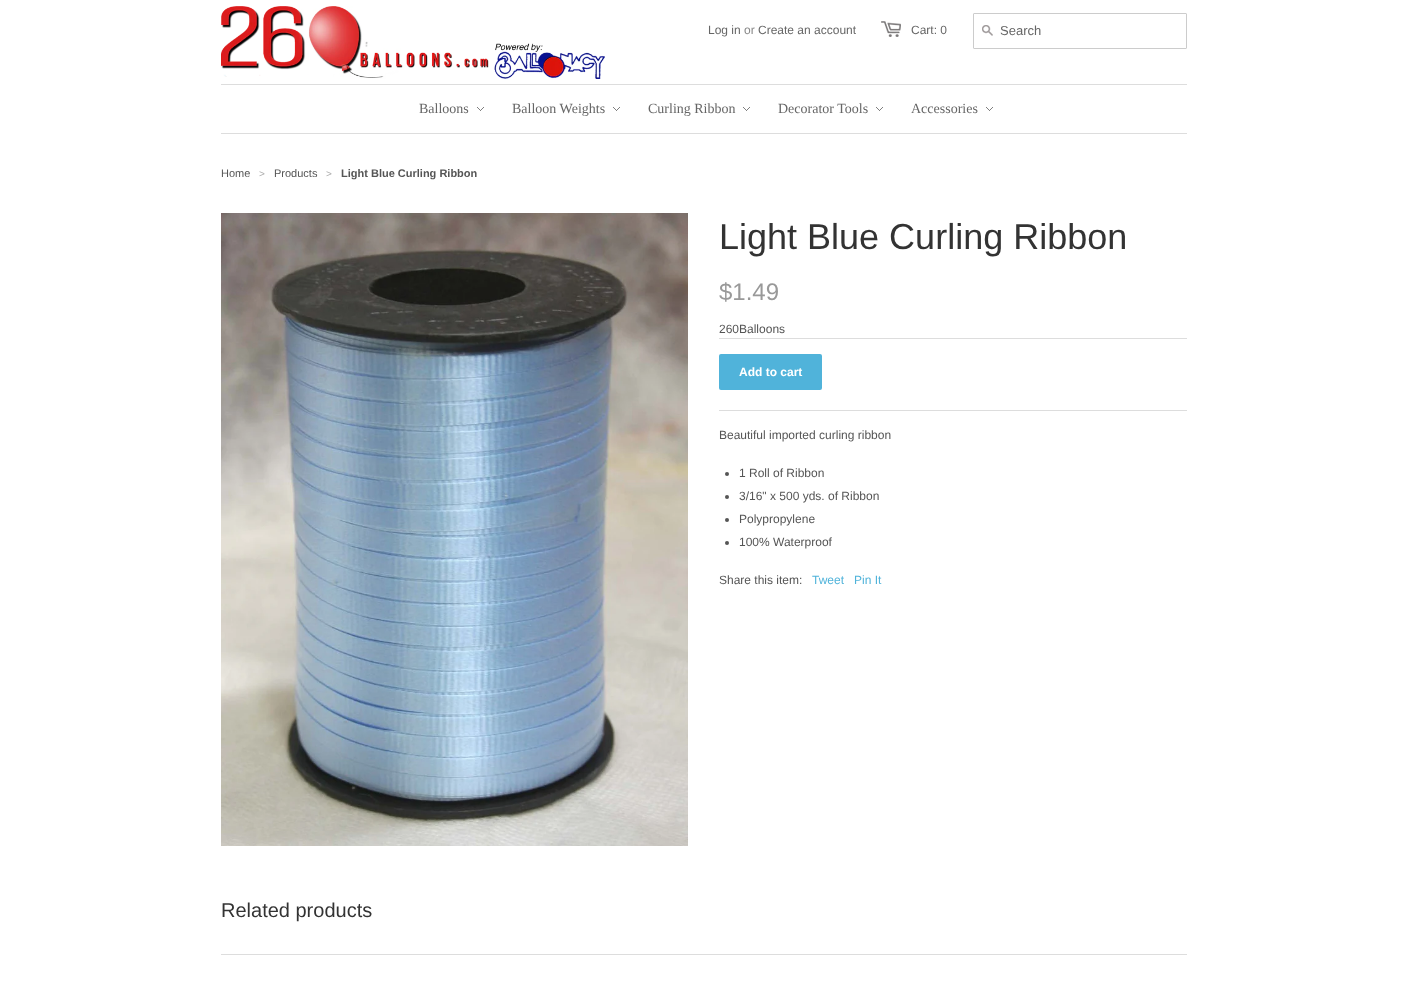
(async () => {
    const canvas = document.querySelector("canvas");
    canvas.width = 1407;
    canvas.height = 982;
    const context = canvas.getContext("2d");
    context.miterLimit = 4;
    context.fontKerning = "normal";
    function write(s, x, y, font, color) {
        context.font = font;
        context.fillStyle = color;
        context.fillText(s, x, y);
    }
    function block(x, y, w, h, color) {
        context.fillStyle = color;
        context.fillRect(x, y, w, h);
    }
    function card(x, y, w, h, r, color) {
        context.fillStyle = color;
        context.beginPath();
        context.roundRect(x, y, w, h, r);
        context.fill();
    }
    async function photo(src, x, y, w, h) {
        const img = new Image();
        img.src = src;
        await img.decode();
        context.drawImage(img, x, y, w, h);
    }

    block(0, 0, 1407, 982, "rgb(255, 255, 255)");
    await photo("media/1.png", 221, 6, 384, 73);
    write("Log in", 708, 34, "12px Liberation Sans", "rgb(102, 102, 102)");
    write("or", 744, 34, "12px Liberation Sans", "rgb(136, 136, 136)");
    write("Create an account", 758, 34, "12px Liberation Sans", "rgb(102, 102, 102)");
    await photo("media/2.png", 881, 21, 20, 16);
    write("Cart: 0", 911, 34, "12px Liberation Sans", "rgb(102, 102, 102)");
    context.beginPath();
    context.roundRect(973.5, 13.5, 213, 35, 0.5);
    context.strokeStyle = "rgb(204, 204, 204)";
    context.stroke();
    await photo("media/3.png", 982, 25, 11, 11);
    write("Search", 1000, 35, "13px Liberation Sans", "rgb(102, 102, 102)");
    block(221, 84, 966, 1, "rgb(221, 221, 221)");
    block(221, 133, 966, 1, "rgb(221, 221, 221)");
    await photo("media/4.png", 477, 107, 7, 4);
    write("Balloons", 419, 113, "14px Liberation Serif", "rgb(102, 102, 102)");
    await photo("media/4.png", 613, 107, 7, 4);
    write("Balloon Weights", 512, 113, "14px Liberation Serif", "rgb(102, 102, 102)");
    await photo("media/4.png", 743, 107, 7, 4);
    write("Curling Ribbon", 648, 113, "14px Liberation Serif", "rgb(102, 102, 102)");
    await photo("media/4.png", 876, 107, 7, 4);
    write("Decorator Tools", 778, 113, "14px Liberation Serif", "rgb(102, 102, 102)");
    await photo("media/4.png", 986, 107, 7, 4);
    write("Accessories", 911, 113, "14px Liberation Serif", "rgb(102, 102, 102)");
    write("Home", 221, 177, "11px Liberation Sans", "rgb(85, 85, 85)");
    write(">", 259, 177, "10px Liberation Sans", "rgb(170, 170, 170)");
    write("Products", 274, 177, "11px Liberation Sans", "rgb(85, 85, 85)");
    write(">", 326, 177, "10px Liberation Sans", "rgb(170, 170, 170)");
    write("Light Blue Curling Ribbon", 341, 177, "bold 11px Liberation Sans", "rgb(85, 85, 85)");
    await photo("media/5.png", 221, 213, 467, 633);
    write("Light Blue Curling Ribbon", 719, 249, "36px Liberation Sans", "rgb(51, 51, 51)");
    write("$1.49", 719, 300, "24px Liberation Sans", "rgb(153, 153, 153)");
    write("260Balloons", 719, 333, "12px Liberation Sans", "rgb(85, 85, 85)");
    block(719, 338, 468, 1, "rgb(221, 221, 221)");
    block(719, 410, 468, 1, "rgb(221, 221, 221)");
    card(719, 354, 103, 36, 2, "rgb(80, 179, 218)");
    write("Add to cart", 739, 376, "bold 12px Liberation Sans", "rgb(255, 255, 255)");
    write("Beautiful imported curling ribbon", 719, 439, "12px Liberation Sans", "rgb(85, 85, 85)");
    context.beginPath();
    context.arc(727, 474, 2, 0, Math.PI * 2);
    context.fill();
    write("1 Roll of Ribbon", 739, 477, "12px Liberation Sans", "rgb(85, 85, 85)");
    context.beginPath();
    context.arc(727, 497, 2, 0, Math.PI * 2);
    context.fill();
    write("3/16\" x 500 yds. of Ribbon", 739, 500, "12px Liberation Sans", "rgb(85, 85, 85)");
    context.beginPath();
    context.arc(727, 520, 2, 0, Math.PI * 2);
    context.fill();
    write("Polypropylene", 739, 523, "12px Liberation Sans", "rgb(85, 85, 85)");
    context.beginPath();
    context.arc(727, 543, 2, 0, Math.PI * 2);
    context.fill();
    write("100% Waterproof", 739, 546, "12px Liberation Sans", "rgb(85, 85, 85)");
    write("Share this item:", 719, 584, "12px Liberation Sans", "rgb(85, 85, 85)");
    write("Tweet", 812, 584, "12px Liberation Sans", "rgb(80, 179, 218)");
    write("Pin It", 854, 584, "12px Liberation Sans", "rgb(80, 179, 218)");
    block(221, 954, 966, 1, "rgb(221, 221, 221)");
    write("Related products", 221, 917, "20px Liberation Sans", "rgb(51, 51, 51)");
})();
